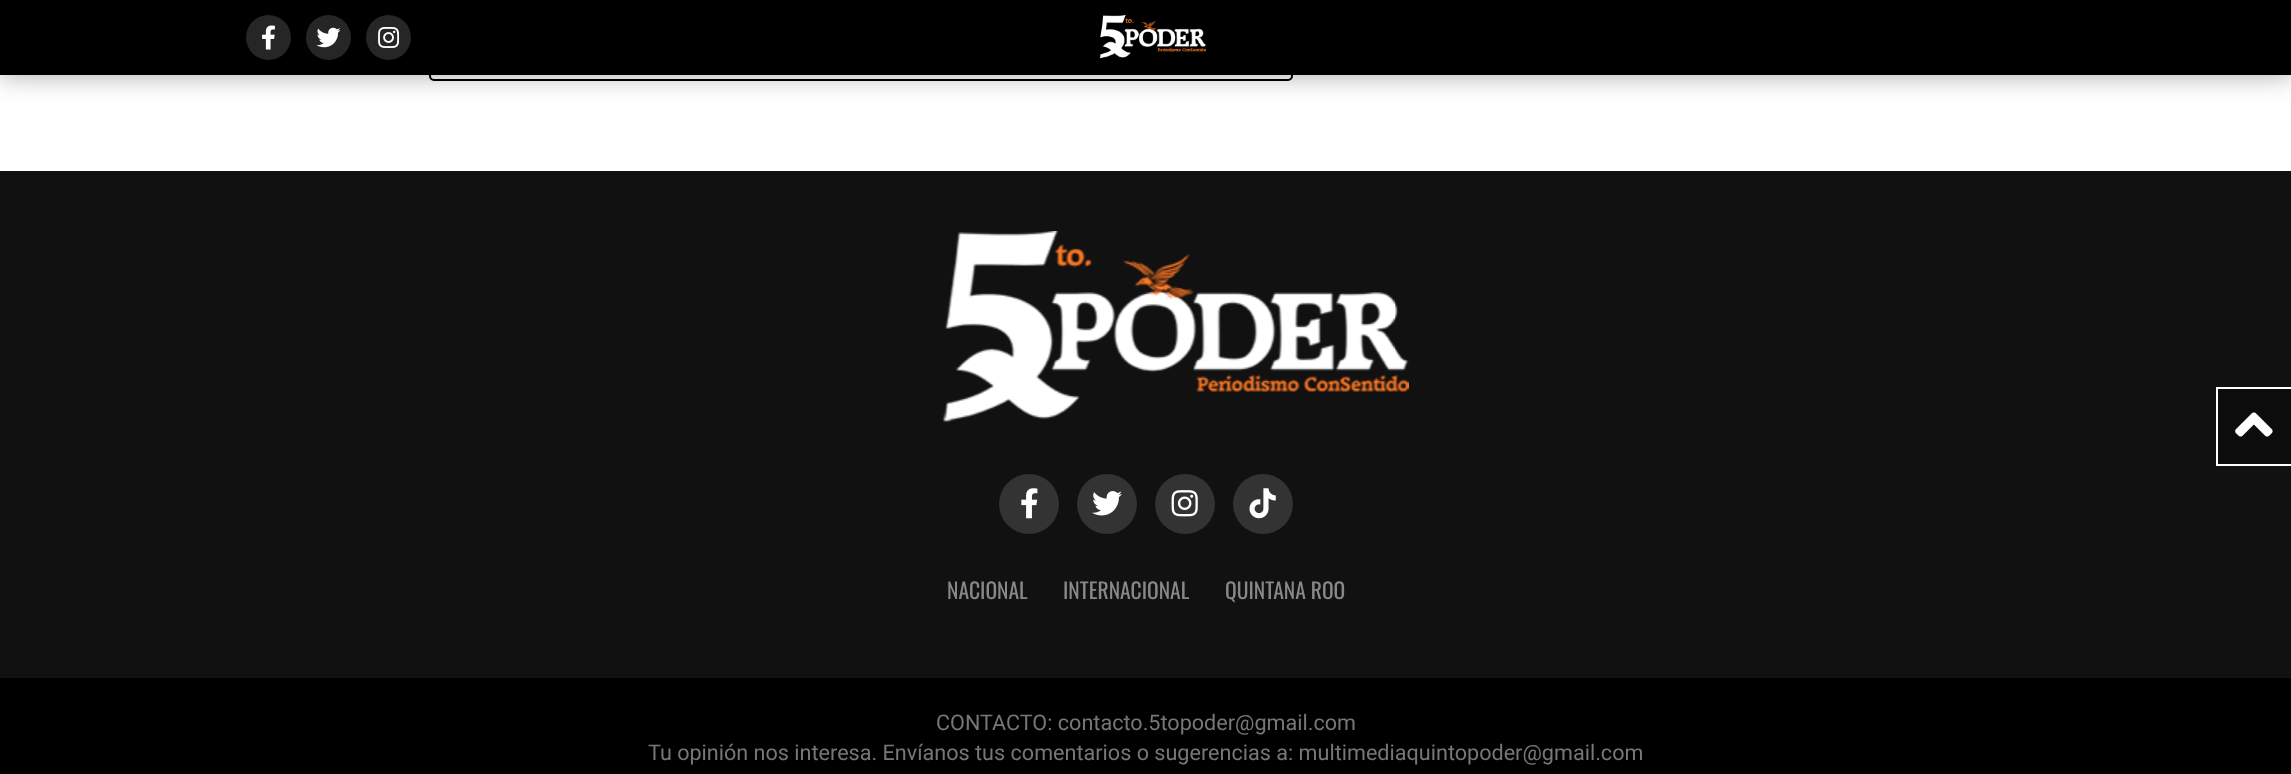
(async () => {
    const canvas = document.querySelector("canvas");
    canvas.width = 2291;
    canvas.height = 774;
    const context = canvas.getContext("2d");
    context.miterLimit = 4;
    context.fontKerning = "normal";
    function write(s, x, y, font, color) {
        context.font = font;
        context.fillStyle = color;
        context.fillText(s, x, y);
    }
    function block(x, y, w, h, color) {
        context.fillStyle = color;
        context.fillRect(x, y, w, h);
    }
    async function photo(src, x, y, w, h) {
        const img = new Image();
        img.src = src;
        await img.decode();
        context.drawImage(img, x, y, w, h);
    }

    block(0, 0, 2291, 774, "rgb(255, 255, 255)");
    block(0, 171, 2291, 507, "rgb(17, 17, 17)");
    block(2218, 389, 73, 75, "rgb(12, 12, 12)");
    block(2216, 387, 75, 2, "rgb(255, 255, 255)");
    block(2216, 464, 75, 2, "rgb(255, 255, 255)");
    block(2216, 387, 2, 78, "rgb(255, 255, 255)");
    await photo("media/1.png", 2235, 412, 38, 25);
    context.beginPath();
    context.roundRect(430, 16, 862, 64, 4);
    context.strokeStyle = "rgb(0, 0, 0)";
    context.lineWidth = 2;
    context.stroke();
    context.fillStyle = "rgba(0, 0, 0, 0.3)";
    context.filter = "blur(12px)";
    context.beginPath();
    context.rect(0, 2, 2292, 75);
    context.fill();
    context.filter = "none";
    block(0, 0, 2291, 75, "rgb(0, 0, 0)");
    context.fillStyle = "rgb(38, 38, 38)";
    context.beginPath();
    context.arc(268.5, 37.5, 22.5, 0, Math.PI * 2);
    context.fill();
    await photo("media/2.png", 262, 25, 13, 25);
    context.beginPath();
    context.arc(328.5, 37.5, 22.5, 0, Math.PI * 2);
    context.fill();
    await photo("media/3.png", 316, 27, 25, 21);
    context.beginPath();
    context.arc(388.5, 37.5, 22.5, 0, Math.PI * 2);
    context.fill();
    await photo("media/4.png", 378, 27, 22, 21);
    await photo("media/5.png", 1099, 15, 107, 44);
    await photo("media/6.png", 942, 231, 467, 191);
    context.fillStyle = "rgb(51, 51, 51)";
    context.beginPath();
    context.arc(1029, 504, 30, 0, Math.PI * 2);
    context.fill();
    await photo("media/7.png", 1021, 488, 17, 31);
    context.beginPath();
    context.arc(1107, 504, 30, 0, Math.PI * 2);
    context.fill();
    await photo("media/8.png", 1092, 491, 30, 25);
    context.beginPath();
    context.arc(1185, 504, 30, 0, Math.PI * 2);
    context.fill();
    await photo("media/9.png", 1171, 490, 27, 27);
    context.beginPath();
    context.arc(1263, 504, 30, 0, Math.PI * 2);
    context.fill();
    await photo("media/10.png", 1249, 488, 27, 31);
    write("NACIONAL", 947, 599, "21.6px Oswald", "rgb(136, 136, 136)");
    write("INTERNACIONAL", 1063, 599, "21.6px Oswald", "rgb(136, 136, 136)");
    write("QUINTANA ROO", 1225, 599, "21.6px Oswald", "rgb(136, 136, 136)");
    block(0, 678, 2291, 96, "rgb(0, 0, 0)");
    write("CONTACTO: contacto.5topoder@gmail.com", 936, 730, "21.6px Roboto", "rgb(119, 119, 119)");
    write("Tu opinión nos interesa. Envíanos tus comentarios o sugerencias a: multimediaquintopoder@gmail.com", 648, 760, "21.6px Roboto", "rgb(119, 119, 119)");
})();
